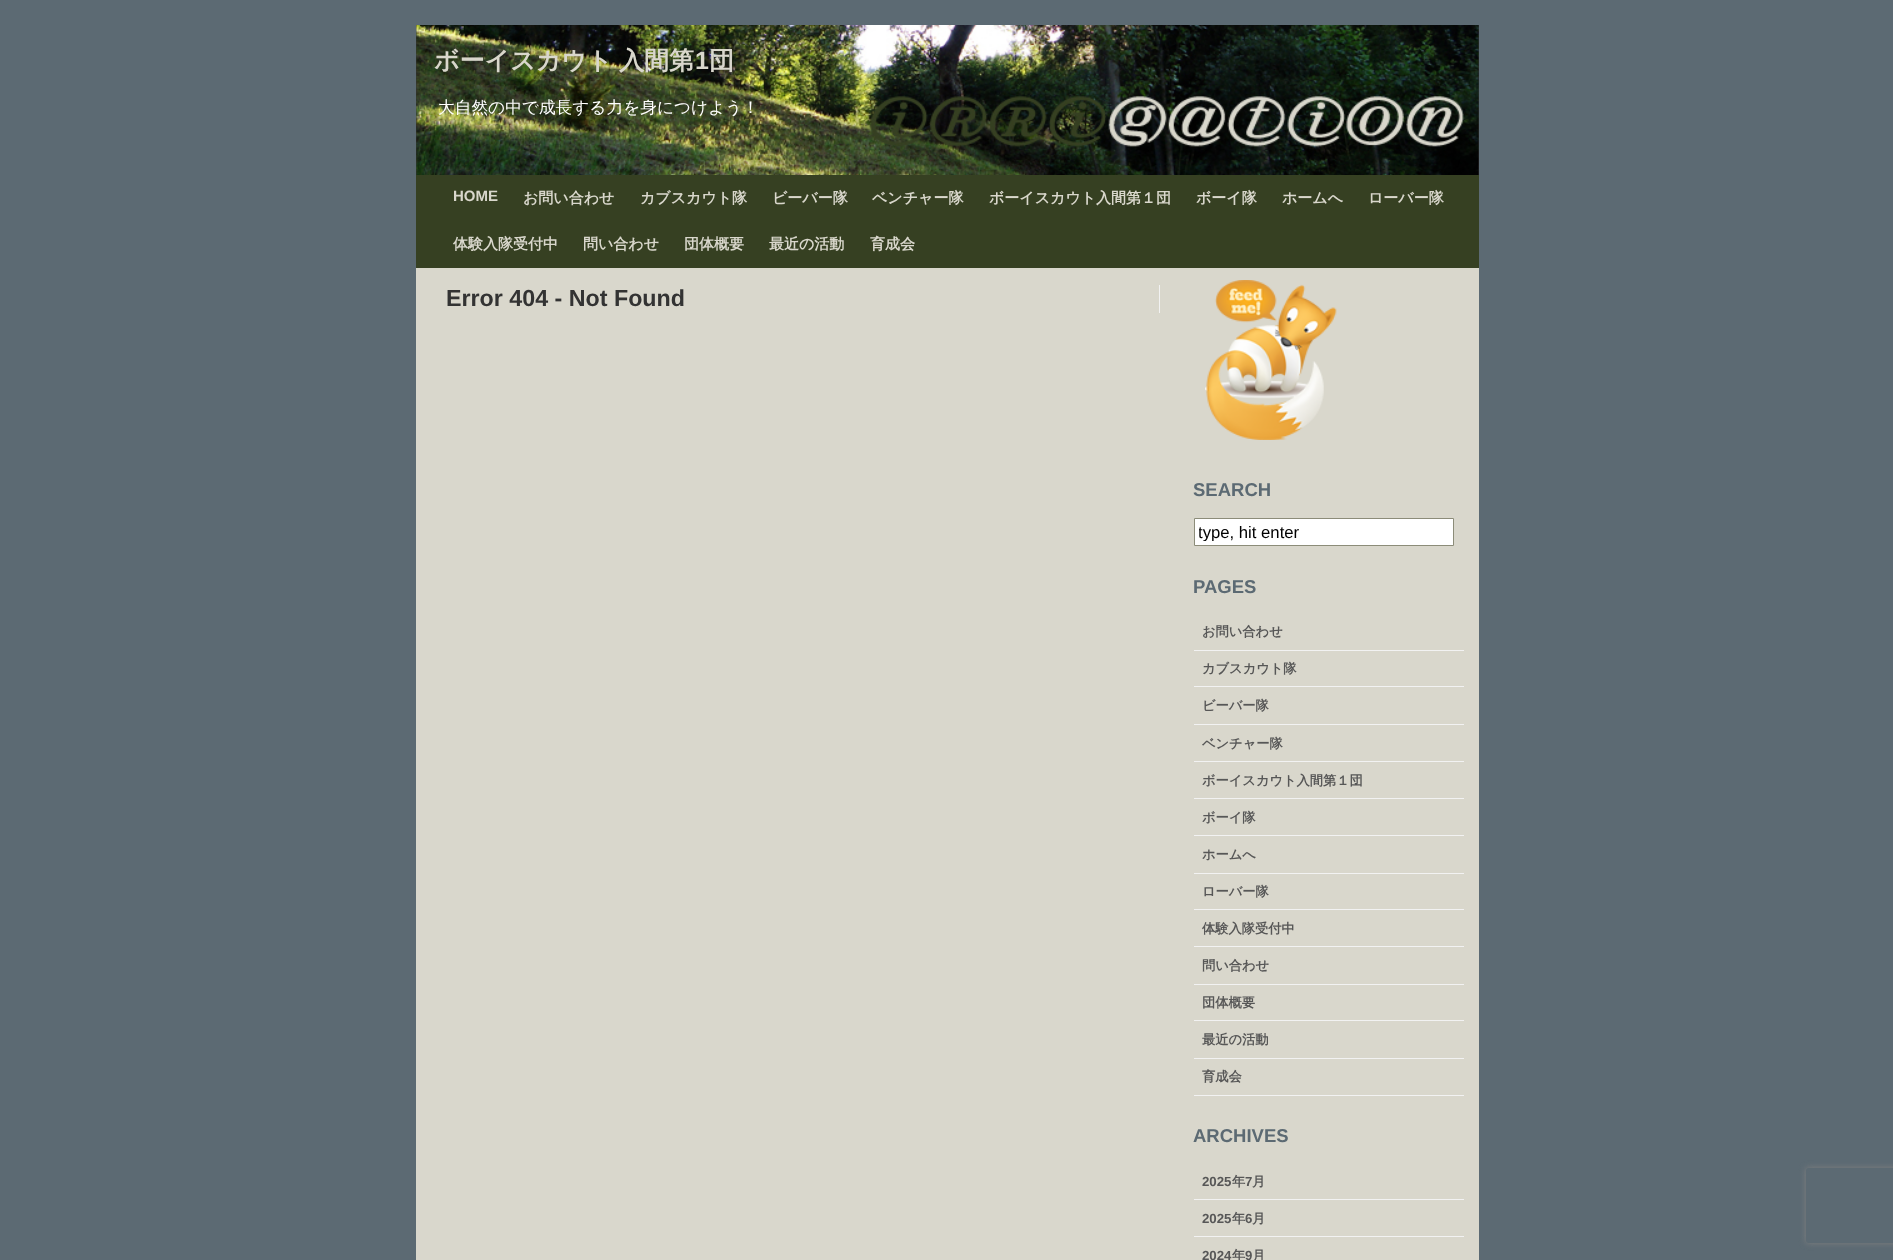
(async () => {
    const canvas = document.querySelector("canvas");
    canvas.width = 1893;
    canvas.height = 1260;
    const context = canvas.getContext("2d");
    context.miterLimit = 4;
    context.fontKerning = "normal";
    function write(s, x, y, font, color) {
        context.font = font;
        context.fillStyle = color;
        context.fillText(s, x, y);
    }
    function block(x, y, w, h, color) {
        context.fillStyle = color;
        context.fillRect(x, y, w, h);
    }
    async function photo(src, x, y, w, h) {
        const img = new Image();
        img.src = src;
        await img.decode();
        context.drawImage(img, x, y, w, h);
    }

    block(0, 0, 1893, 1260, "rgb(92, 106, 115)");
    block(416, 268, 1063, 992, "rgb(217, 215, 204)");
    block(416, 25, 1063, 150, "rgb(51, 51, 51)");
    await photo("media/1.png", 416, 25, 1063, 150);
    context.wordSpacing = "-1px";
    write("ボーイスカウト 入間第", 434, 69, "bold 25px WenQuanYi Zen Hei", "rgb(217, 215, 204)");
    context.wordSpacing = "0px";
    write("1", 695, 69, "bold 25px Liberation Sans", "rgb(217, 215, 204)");
    write("団", 709, 69, "bold 25px WenQuanYi Zen Hei", "rgb(217, 215, 204)");
    write("大自然の中で成長する力を身につけよう！", 438, 113, "500 16.7px WenQuanYi Zen Hei", "rgb(255, 255, 255)");
    block(416, 175, 1063, 93, "rgb(54, 64, 34)");
    write("HOME", 453, 201, "bold 15px Liberation Sans", "rgb(217, 215, 204)");
    write("お問い合わせ", 523, 203, "bold 15px WenQuanYi Zen Hei", "rgb(217, 215, 204)");
    write("カブスカウト隊", 640, 203, "bold 15px WenQuanYi Zen Hei", "rgb(217, 215, 204)");
    write("ビーバー隊", 772, 203, "bold 15px WenQuanYi Zen Hei", "rgb(217, 215, 204)");
    write("ベンチャー隊", 872, 203, "bold 15px WenQuanYi Zen Hei", "rgb(217, 215, 204)");
    write("ボーイスカウト入間第１団", 989, 203, "bold 15px WenQuanYi Zen Hei", "rgb(217, 215, 204)");
    write("ボーイ隊", 1196, 203, "bold 15px WenQuanYi Zen Hei", "rgb(217, 215, 204)");
    write("ホームへ", 1282, 203, "bold 15px WenQuanYi Zen Hei", "rgb(217, 215, 204)");
    write("ローバー隊", 1368, 203, "bold 15px WenQuanYi Zen Hei", "rgb(217, 215, 204)");
    write("体験入隊受付中", 453, 249, "bold 15px WenQuanYi Zen Hei", "rgb(217, 215, 204)");
    write("問い合わせ", 583, 249, "bold 15px WenQuanYi Zen Hei", "rgb(217, 215, 204)");
    write("団体概要", 684, 249, "bold 15px WenQuanYi Zen Hei", "rgb(217, 215, 204)");
    write("最近の活動", 769, 249, "bold 15px WenQuanYi Zen Hei", "rgb(217, 215, 204)");
    write("育成会", 870, 249, "bold 15px WenQuanYi Zen Hei", "rgb(217, 215, 204)");
    block(1159, 285, 1, 28, "rgb(242, 242, 242)");
    write("Error 404 - Not Found", 446, 306, "bold 23.25px Liberation Sans", "rgb(51, 51, 51)");
    await photo("media/2.png", 1205, 280, 132, 160);
    write("SEARCH", 1193, 496, "bold 18.5px Liberation Sans", "rgb(92, 106, 115)");
    context.fillStyle = "rgb(255, 255, 255)";
    context.beginPath();
    context.rect(1194.5, 518.5, 259, 27);
    context.fill();
    context.strokeStyle = "rgb(140, 140, 121)";
    context.stroke();
    context.save();
    context.beginPath();
    context.rect(1199, 523, 250, 18);
    context.clip();
    write("type, hit enter", 1198, 538, "16.7px Liberation Sans", "rgb(0, 0, 0)");
    context.restore();
    write("PAGES", 1193, 593, "bold 18.5px Liberation Sans", "rgb(92, 106, 115)");
    block(1194, 650, 270, 1, "rgb(242, 242, 242)");
    write("お問い合わせ", 1202, 636, "bold 13.25px WenQuanYi Zen Hei", "rgb(87, 87, 87)");
    block(1194, 686, 270, 1, "rgb(242, 242, 242)");
    write("カブスカウト隊", 1202, 673, "bold 13.25px WenQuanYi Zen Hei", "rgb(87, 87, 87)");
    block(1194, 724, 270, 1, "rgb(242, 242, 242)");
    write("ビーバー隊", 1202, 710, "bold 13.25px WenQuanYi Zen Hei", "rgb(87, 87, 87)");
    block(1194, 761, 270, 1, "rgb(242, 242, 242)");
    write("ベンチャー隊", 1202, 748, "bold 13.25px WenQuanYi Zen Hei", "rgb(87, 87, 87)");
    block(1194, 798, 270, 1, "rgb(242, 242, 242)");
    write("ボーイスカウト入間第１団", 1202, 785, "bold 13.25px WenQuanYi Zen Hei", "rgb(87, 87, 87)");
    block(1194, 835, 270, 1, "rgb(242, 242, 242)");
    write("ボーイ隊", 1202, 822, "bold 13.25px WenQuanYi Zen Hei", "rgb(87, 87, 87)");
    block(1194, 873, 270, 1, "rgb(242, 242, 242)");
    write("ホームへ", 1202, 859, "bold 13.25px WenQuanYi Zen Hei", "rgb(87, 87, 87)");
    block(1194, 909, 270, 1, "rgb(242, 242, 242)");
    write("ローバー隊", 1202, 896, "bold 13.25px WenQuanYi Zen Hei", "rgb(87, 87, 87)");
    block(1194, 946, 270, 1, "rgb(242, 242, 242)");
    write("体験入隊受付中", 1202, 933, "bold 13.25px WenQuanYi Zen Hei", "rgb(87, 87, 87)");
    block(1194, 984, 270, 1, "rgb(242, 242, 242)");
    write("問い合わせ", 1202, 970, "bold 13.25px WenQuanYi Zen Hei", "rgb(87, 87, 87)");
    block(1194, 1020, 270, 1, "rgb(242, 242, 242)");
    write("団体概要", 1202, 1007, "bold 13.25px WenQuanYi Zen Hei", "rgb(87, 87, 87)");
    block(1194, 1058, 270, 1, "rgb(242, 242, 242)");
    write("最近の活動", 1202, 1044, "bold 13.25px WenQuanYi Zen Hei", "rgb(87, 87, 87)");
    block(1194, 1095, 270, 1, "rgb(242, 242, 242)");
    write("育成会", 1202, 1081, "bold 13.25px WenQuanYi Zen Hei", "rgb(87, 87, 87)");
    write("ARCHIVES", 1193, 1142, "bold 18.5px Liberation Sans", "rgb(92, 106, 115)");
    block(1194, 1199, 270, 1, "rgb(242, 242, 242)");
    write("2025", 1202, 1186, "bold 13.25px Liberation Sans", "rgb(87, 87, 87)");
    write("年", 1232, 1186, "bold 13.25px WenQuanYi Zen Hei", "rgb(87, 87, 87)");
    write("7", 1245, 1186, "bold 13.25px Liberation Sans", "rgb(87, 87, 87)");
    write("月", 1252, 1186, "bold 13.25px WenQuanYi Zen Hei", "rgb(87, 87, 87)");
    block(1194, 1236, 270, 1, "rgb(242, 242, 242)");
    write("2025", 1202, 1223, "bold 13.25px Liberation Sans", "rgb(87, 87, 87)");
    write("年", 1232, 1223, "bold 13.25px WenQuanYi Zen Hei", "rgb(87, 87, 87)");
    write("6", 1245, 1223, "bold 13.25px Liberation Sans", "rgb(87, 87, 87)");
    write("月", 1252, 1223, "bold 13.25px WenQuanYi Zen Hei", "rgb(87, 87, 87)");
    write("2024", 1202, 1260, "bold 13.25px Liberation Sans", "rgb(87, 87, 87)");
    write("年", 1232, 1260, "bold 13.25px WenQuanYi Zen Hei", "rgb(87, 87, 87)");
    write("9", 1245, 1260, "bold 13.25px Liberation Sans", "rgb(87, 87, 87)");
    write("月", 1252, 1260, "bold 13.25px WenQuanYi Zen Hei", "rgb(87, 87, 87)");
    context.save();
    context.beginPath();
    context.moveTo(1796, 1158);
    context.lineTo(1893, 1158);
    context.lineTo(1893, 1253);
    context.lineTo(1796, 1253);
    context.closePath();
    context.moveTo(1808.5, 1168);
    context.lineTo(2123.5, 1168);
    context.bezierCurveTo(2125, 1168, 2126, 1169, 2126, 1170.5);
    context.lineTo(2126, 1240.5);
    context.bezierCurveTo(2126, 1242, 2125, 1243, 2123.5, 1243);
    context.lineTo(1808.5, 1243);
    context.bezierCurveTo(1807, 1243, 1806, 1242, 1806, 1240.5);
    context.lineTo(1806, 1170.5);
    context.bezierCurveTo(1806, 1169, 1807, 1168, 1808.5, 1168);
    context.closePath();
    context.clip("evenodd");
    context.fillStyle = "rgb(128, 128, 128)";
    context.filter = "blur(3px)";
    context.beginPath();
    context.roundRect(1806, 1168, 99, 75, 2.5);
    context.fill();
    context.filter = "none";
    context.restore();
})();
